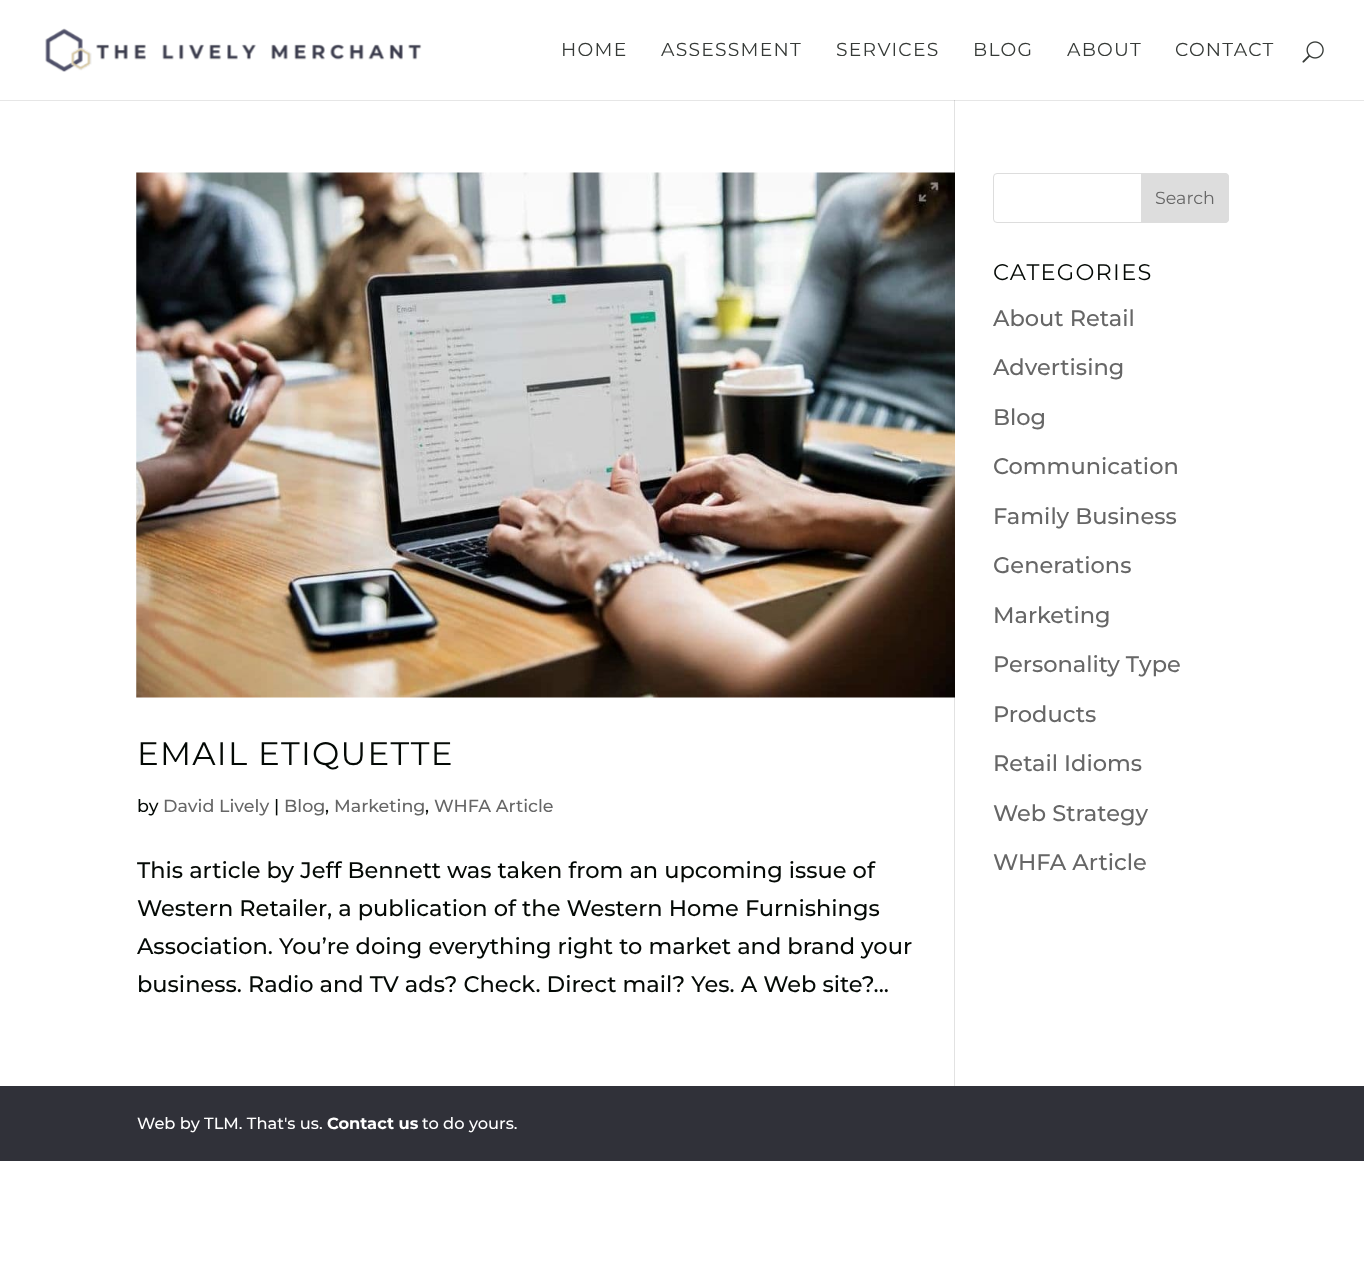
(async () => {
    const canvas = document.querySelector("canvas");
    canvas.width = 1364;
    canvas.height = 1267;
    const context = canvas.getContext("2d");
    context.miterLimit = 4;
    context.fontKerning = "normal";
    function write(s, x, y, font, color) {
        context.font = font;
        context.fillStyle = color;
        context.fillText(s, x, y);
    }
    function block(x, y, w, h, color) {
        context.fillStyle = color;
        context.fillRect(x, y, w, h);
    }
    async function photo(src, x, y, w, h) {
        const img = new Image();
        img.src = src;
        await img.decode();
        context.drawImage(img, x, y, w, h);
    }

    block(0, 0, 1364, 1267, "rgb(255, 255, 255)");
    block(0, 100, 1364, 1, "rgb(230, 230, 230)");
    await photo("media/1.png", 45, 28, 377, 44);
    context.letterSpacing = "1.25px";
    write("HOME", 561, 56, "18.75px Montserrat", "rgb(54, 58, 55)");
    write("ASSESSMENT", 661, 56, "18.75px Montserrat", "rgb(54, 58, 55)");
    write("SERVICES", 836, 56, "18.75px Montserrat", "rgb(54, 58, 55)");
    write("BLOG", 973, 56, "18.75px Montserrat", "rgb(54, 58, 55)");
    write("ABOUT", 1067, 56, "18.75px Montserrat", "rgb(54, 58, 55)");
    write("CONTACT", 1175, 56, "18.75px Montserrat", "rgb(54, 58, 55)");
    await photo("media/2.png", 1302, 41, 22, 22);
    block(954, 100, 1, 986, "rgb(226, 226, 226)");
    block(954, 100, 1, 1, "rgb(203, 203, 203)");
    await photo("media/3.png", 136, 172, 819, 526);
    write("EMAIL ETIQUETTE", 137, 765, "32.5px Montserrat", "rgb(4, 9, 5)");
    context.letterSpacing = "0px";
    write("by", 137, 812, "500 17.5px Montserrat", "rgb(4, 9, 5)");
    write("David Lively", 163, 812, "500 17.5px Montserrat", "rgb(102, 102, 102)");
    write("|", 274, 812, "500 17.5px Montserrat", "rgb(4, 9, 5)");
    write("Blog", 284, 812, "500 17.5px Montserrat", "rgb(102, 102, 102)");
    write(",", 325, 812, "500 17.5px Montserrat", "rgb(4, 9, 5)");
    write("Marketing", 334, 812, "500 17.5px Montserrat", "rgb(102, 102, 102)");
    write(",", 425, 812, "500 17.5px Montserrat", "rgb(4, 9, 5)");
    write("WHFA Article", 434, 812, "500 17.5px Montserrat", "rgb(102, 102, 102)");
    write("This article by Jeff Bennett was taken from an upcoming issue of", 137, 878, "500 22.5px Montserrat", "rgb(4, 9, 5)");
    write("Western Retailer, a publication of the Western Home Furnishings", 137, 916, "500 22.5px Montserrat", "rgb(4, 9, 5)");
    write("Association. You’re doing everything right to market and brand your", 137, 954, "500 22.5px Montserrat", "rgb(4, 9, 5)");
    write("business. Radio and TV ads? Check. Direct mail? Yes. A Web site?...", 137, 992, "500 22.5px Montserrat", "rgb(4, 9, 5)");
    context.beginPath();
    context.roundRect(993.5, 173.5, 235, 49, 3.5);
    context.strokeStyle = "rgb(221, 221, 221)";
    context.stroke();
    context.fillStyle = "rgb(221, 221, 221)";
    context.beginPath();
    context.roundRect(1141.5, 173.5, 87, 49, [0, 3.5, 3.5, 0]);
    context.fill();
    context.stroke();
    write("Search", 1155, 204, "17.5px Montserrat", "rgb(102, 102, 102)");
    context.letterSpacing = "1.25px";
    write("CATEGORIES", 993, 280, "22.5px Montserrat", "rgb(4, 9, 5)");
    context.letterSpacing = "0px";
    write("About Retail", 993, 326, "500 22.5px Montserrat", "rgb(102, 102, 102)");
    write("Advertising", 993, 375, "500 22.5px Montserrat", "rgb(102, 102, 102)");
    write("Blog", 993, 425, "500 22.5px Montserrat", "rgb(102, 102, 102)");
    write("Communication", 993, 474, "500 22.5px Montserrat", "rgb(102, 102, 102)");
    write("Family Business", 993, 524, "500 22.5px Montserrat", "rgb(102, 102, 102)");
    write("Generations", 993, 573, "500 22.5px Montserrat", "rgb(102, 102, 102)");
    write("Marketing", 993, 623, "500 22.5px Montserrat", "rgb(102, 102, 102)");
    write("Personality Type", 993, 672, "500 22.5px Montserrat", "rgb(102, 102, 102)");
    write("Products", 993, 722, "500 22.5px Montserrat", "rgb(102, 102, 102)");
    write("Retail Idioms", 993, 771, "500 22.5px Montserrat", "rgb(102, 102, 102)");
    write("Web Strategy", 993, 821, "500 22.5px Montserrat", "rgb(102, 102, 102)");
    write("WHFA Article", 993, 870, "500 22.5px Montserrat", "rgb(102, 102, 102)");
    block(0, 1086, 1364, 75, "rgb(48, 49, 57)");
    write("Web by TLM. That's us.", 137, 1129, "500 16.25px Montserrat", "rgb(255, 255, 255)");
    write("Contact us", 327, 1129, "bold 16.25px Montserrat", "rgb(255, 255, 255)");
    write("to do yours.", 422, 1129, "500 16.25px Montserrat", "rgb(255, 255, 255)");
})();
